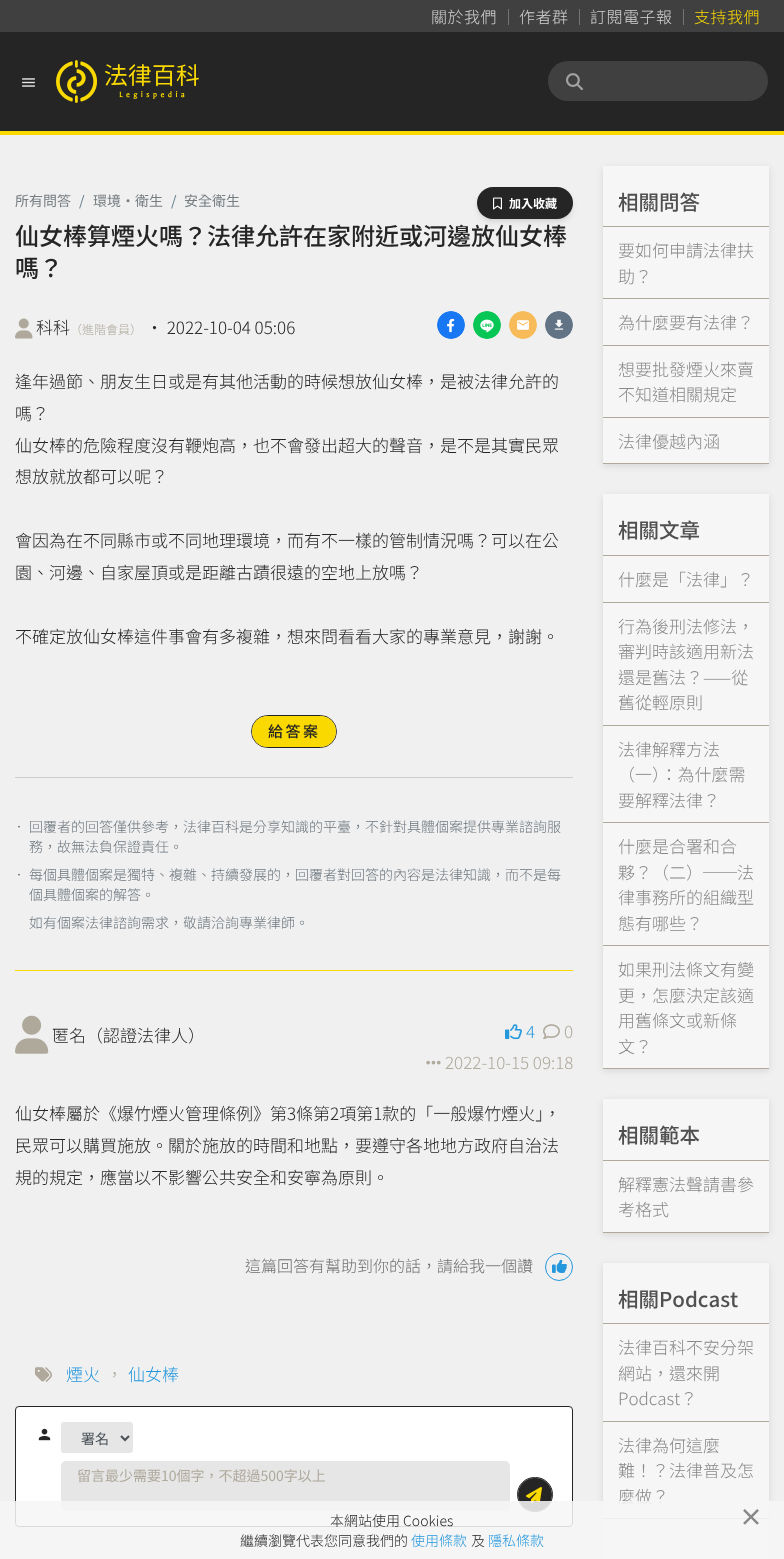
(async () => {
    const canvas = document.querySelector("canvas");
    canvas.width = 784;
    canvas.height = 1559;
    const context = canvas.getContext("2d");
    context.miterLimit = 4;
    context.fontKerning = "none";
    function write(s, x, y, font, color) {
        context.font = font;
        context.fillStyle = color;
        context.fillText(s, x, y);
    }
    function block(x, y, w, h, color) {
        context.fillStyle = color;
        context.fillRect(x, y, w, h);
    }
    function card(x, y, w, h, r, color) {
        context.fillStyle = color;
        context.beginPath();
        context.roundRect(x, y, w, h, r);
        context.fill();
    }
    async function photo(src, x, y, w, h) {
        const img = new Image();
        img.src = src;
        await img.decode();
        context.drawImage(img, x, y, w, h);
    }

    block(0, 0, 784, 1559, "rgb(240, 240, 240)");
    block(0, 0, 784, 32, "rgb(64, 64, 64)");
    context.letterSpacing = "0.5px";
    write("關於我們", 431, 23, "300 16px Noto Sans TC", "rgb(212, 212, 212)");
    block(508, 9, 1, 16, "rgb(115, 115, 115)");
    write("作者群", 519, 23, "300 16px Noto Sans TC", "rgb(212, 212, 212)");
    block(579, 9, 1, 16, "rgb(115, 115, 115)");
    write("訂閱電子報", 590, 23, "300 16px Noto Sans TC", "rgb(212, 212, 212)");
    block(683, 9, 1, 16, "rgb(115, 115, 115)");
    write("支持我們", 694, 23, "300 16px Noto Sans TC", "rgb(250, 217, 0)");
    block(0, 32, 784, 99, "rgb(37, 37, 37)");
    block(0, 131, 784, 4, "rgb(250, 217, 0)");
    await photo("media/1.png", 22, 78, 13, 9);
    await photo("media/2.png", 56, 60, 41, 43);
    await photo("media/3.png", 105, 64, 94, 35);
    card(548, 61, 220, 40, 20, "rgb(64, 64, 64)");
    await photo("media/4.png", 566, 73, 17, 18);
    context.letterSpacing = "0px";
    write("所有問答", 15, 206, "14px Noto Sans TC", "rgb(119, 126, 130)");
    write("/", 79, 206, "14px Noto Sans TC", "rgb(96, 125, 139)");
    write("環境‧衛生", 93, 206, "14px Noto Sans TC", "rgb(119, 126, 130)");
    write("/", 171, 206, "14px Noto Sans TC", "rgb(96, 125, 139)");
    write("安全衛生", 184, 206, "14px Noto Sans TC", "rgb(119, 126, 130)");
    context.fillStyle = "rgba(33, 33, 33, 0.1)";
    context.filter = "blur(2px)";
    context.beginPath();
    context.roundRect(479, 191, 92, 28, 14);
    context.fill();
    context.filter = "none";
    context.filter = "blur(3px)";
    context.beginPath();
    context.roundRect(478, 192, 94, 30, 15);
    context.fill();
    context.filter = "none";
    card(477, 187, 96, 32, 16, "rgb(37, 37, 37)");
    await photo("media/5.png", 493, 197, 9, 13);
    write("加入收藏", 509, 208, "bold 12px Noto Sans TC", "rgb(255, 255, 255)");
    write("仙女棒算煙火嗎？法律允許在家附近或河邊放仙女棒", 15, 245, "500 24px Noto Sans TC", "rgb(37, 37, 37)");
    write("嗎？", 15, 277, "500 24px Noto Sans TC", "rgb(37, 37, 37)");
    await photo("media/6.png", 15, 318, 18, 21);
    write("科科", 36, 334, "300 17px Noto Sans TC", "rgb(37, 37, 37)");
    write("（進階會員）", 70, 334, "300 12px Noto Sans TC", "rgb(175, 169, 156)");
    write("‧ 2022-10-04 05:06", 146, 334, "300 17px Noto Sans TC", "rgb(37, 37, 37)");
    await photo("media/7.png", 437, 311, 28, 28);
    await photo("media/8.png", 473, 311, 28, 28);
    await photo("media/9.png", 509, 311, 28, 28);
    await photo("media/10.png", 545, 311, 28, 28);
    write("逢年過節、朋友生日或是有其他活動的時候想放仙女棒，是被法律允許的", 15, 388, "300 17px Noto Sans TC", "rgb(37, 37, 37)");
    write("嗎？", 15, 420, "300 17px Noto Sans TC", "rgb(37, 37, 37)");
    write("仙女棒的危險程度沒有鞭炮高，也不會發出超大的聲音，是不是其實民眾", 15, 452, "300 17px Noto Sans TC", "rgb(37, 37, 37)");
    write("想放就放都可以呢？", 15, 483, "300 17px Noto Sans TC", "rgb(37, 37, 37)");
    write("會因為在不同縣市或不同地理環境，而有不一樣的管制情況嗎？可以在公", 15, 547, "300 17px Noto Sans TC", "rgb(37, 37, 37)");
    write("園、河邊、自家屋頂或是距離古蹟很遠的空地上放嗎？", 15, 579, "300 17px Noto Sans TC", "rgb(37, 37, 37)");
    write("不確定放仙女棒這件事會有多複雜，想來問看看大家的專業意見，謝謝。", 15, 643, "300 17px Noto Sans TC", "rgb(37, 37, 37)");
    context.beginPath();
    context.roundRect(251.5, 715.5, 85, 32, 16);
    context.strokeStyle = "rgb(37, 37, 37)";
    context.stroke();
    card(252, 716, 84, 31, 15.5, "rgb(250, 217, 0)");
    context.letterSpacing = "2.5px";
    write("給答案", 268, 737, "500 15px Noto Sans TC", "rgb(37, 37, 37)");
    block(15, 777, 558, 1, "rgb(204, 204, 204)");
    context.letterSpacing = "0px";
    write("． 回覆者的回答僅供參考，法律百科是分享知識的平臺，不針對具體個案提供專業諮詢服", 12, 832, "300 14px Noto Sans TC", "rgb(108, 117, 125)");
    write("務，故無法負保證責任。", 29, 852, "300 14px Noto Sans TC", "rgb(108, 117, 125)");
    write("． 每個具體個案是獨特、複雜、持續發展的，回覆者對回答的內容是法律知識，而不是每", 12, 880, "300 14px Noto Sans TC", "rgb(108, 117, 125)");
    write("個具體個案的解答。", 29, 900, "300 14px Noto Sans TC", "rgb(108, 117, 125)");
    write("如有個案法律諮詢需求，敬請洽詢專業律師。", 29, 928, "300 14px Noto Sans TC", "rgb(108, 117, 125)");
    block(15, 970, 558, 1, "rgb(250, 217, 0)");
    await photo("media/11.png", 15, 1015, 34, 39);
    write("匿名（認證法律人）", 52, 1042, "300 17px Noto Sans TC", "rgb(37, 37, 37)");
    await photo("media/12.png", 505, 1024, 17, 16);
    write("4", 526, 1038, "300 17px Noto Sans TC", "rgb(36, 151, 221)");
    await photo("media/13.png", 543, 1024, 17, 15);
    write("0", 564, 1038, "300 17px Noto Sans TC", "rgb(175, 169, 156)");
    await photo("media/14.png", 426, 1060, 15, 5);
    write("2022-10-15 09:18", 445, 1069, "300 17px Noto Sans TC", "rgb(175, 169, 156)");
    write("仙女棒屬於《爆竹煙火管理條例》第3條第2項第1款的「一般爆竹煙火」，", 15, 1120, "300 17px Noto Sans TC", "rgb(37, 37, 37)");
    write("民眾可以購買施放。關於施放的時間和地點，要遵守各地地方政府自治法", 15, 1152, "300 17px Noto Sans TC", "rgb(37, 37, 37)");
    write("規的規定，應當以不影響公共安全和安寧為原則。", 15, 1184, "300 17px Noto Sans TC", "rgb(37, 37, 37)");
    write("這篇回答有幫助到你的話，請給我一個讚", 245, 1272, "300 16px Noto Sans TC", "rgb(110, 110, 110)");
    context.beginPath();
    context.arc(559, 1267, 13.5, 0, Math.PI * 2);
    context.strokeStyle = "rgb(36, 151, 221)";
    context.stroke();
    await photo("media/15.png", 552, 1259, 15, 14);
    await photo("media/16.png", 35, 1367, 17, 15);
    write("煙火", 66, 1381, "300 17px Noto Sans TC", "rgb(36, 151, 221)");
    write("，", 106, 1381, "300 17px Noto Sans TC", "rgb(175, 169, 156)");
    write("仙女棒", 128, 1381, "300 17px Noto Sans TC", "rgb(36, 151, 221)");
    context.fillStyle = "rgb(255, 255, 255)";
    context.beginPath();
    context.roundRect(15.5, 1406.5, 557, 120, 3.5);
    context.fill();
    context.strokeStyle = "rgb(37, 37, 37)";
    context.stroke();
    await photo("media/17.png", 38, 1428, 13, 13);
    card(61, 1422, 72, 31, 3, "rgb(230, 230, 230)");
    context.beginPath();
    context.moveTo(121, 1436);
    context.lineTo(125, 1440);
    context.lineTo(129, 1436);
    context.strokeStyle = "rgb(73, 80, 87)";
    context.lineWidth = 2;
    context.stroke();
    write("署名", 81, 1444, "14px Noto Sans TC", "rgb(73, 80, 87)");
    card(61, 1461, 449, 50, 5, "rgb(230, 230, 230)");
    write("留言最少需要10個字，不超過500字以上", 77, 1481, "14px Noto Sans TC", "rgb(175, 169, 156)");
    context.beginPath();
    context.roundRect(517.5, 1477.5, 35, 34, 17);
    context.strokeStyle = "rgb(37, 37, 37)";
    context.lineWidth = 1;
    context.stroke();
    card(518, 1478, 34, 33, 16.5, "rgb(37, 37, 37)");
    await photo("media/18.png", 526, 1487, 16, 16);
    context.fillStyle = "rgba(0, 0, 0, 0.1)";
    context.filter = "blur(3.5px)";
    context.beginPath();
    context.rect(603, 168, 166, 298);
    context.fill();
    context.filter = "none";
    block(603, 166, 166, 297, "rgb(246, 246, 246)");
    block(603, 226, 166, 1, "rgb(175, 169, 156)");
    write("相關問答", 618, 210, "500 20.5px Noto Sans TC", "rgb(80, 80, 80)");
    block(603, 298, 166, 1, "rgb(175, 169, 156)");
    write("要如何申請法律扶", 618, 257, "300 17px Noto Sans TC", "rgb(136, 136, 136)");
    write("助？", 618, 283, "300 17px Noto Sans TC", "rgb(136, 136, 136)");
    block(603, 345, 166, 1, "rgb(175, 169, 156)");
    write("為什麼要有法律？", 618, 329, "300 17px Noto Sans TC", "rgb(136, 136, 136)");
    block(603, 417, 166, 1, "rgb(175, 169, 156)");
    write("想要批發煙火來賣", 618, 376, "300 17px Noto Sans TC", "rgb(136, 136, 136)");
    write("不知道相關規定", 618, 401, "300 17px Noto Sans TC", "rgb(136, 136, 136)");
    block(603, 463, 166, 1, "rgb(175, 169, 156)");
    write("法律優越內涵", 618, 448, "300 17px Noto Sans TC", "rgb(136, 136, 136)");
    context.fillStyle = "rgba(0, 0, 0, 0.1)";
    context.filter = "blur(3.5px)";
    context.beginPath();
    context.rect(603, 496, 166, 575);
    context.fill();
    context.filter = "none";
    block(603, 494, 166, 574, "rgb(246, 246, 246)");
    block(603, 555, 166, 1, "rgb(175, 169, 156)");
    write("相關文章", 618, 538, "500 20.5px Noto Sans TC", "rgb(80, 80, 80)");
    block(603, 602, 166, 1, "rgb(175, 169, 156)");
    write("什麼是「法律」？", 618, 586, "300 17px Noto Sans TC", "rgb(136, 136, 136)");
    block(603, 725, 166, 1, "rgb(175, 169, 156)");
    write("行為後刑法修法，", 618, 633, "300 17px Noto Sans TC", "rgb(136, 136, 136)");
    write("審判時該適用新法", 618, 658, "300 17px Noto Sans TC", "rgb(136, 136, 136)");
    write("還是舊法？——從", 618, 684, "300 17px Noto Sans TC", "rgb(136, 136, 136)");
    write("舊從輕原則", 618, 709, "300 17px Noto Sans TC", "rgb(136, 136, 136)");
    block(603, 822, 166, 1, "rgb(175, 169, 156)");
    write("法律解釋方法", 618, 756, "300 17px Noto Sans TC", "rgb(136, 136, 136)");
    write("（一）：為什麼需", 618, 781, "300 17px Noto Sans TC", "rgb(136, 136, 136)");
    write("要解釋法律？", 618, 807, "300 17px Noto Sans TC", "rgb(136, 136, 136)");
    block(603, 945, 166, 1, "rgb(175, 169, 156)");
    write("什麼是合署和合", 618, 853, "300 17px Noto Sans TC", "rgb(136, 136, 136)");
    write("夥？（二）──法", 618, 879, "300 17px Noto Sans TC", "rgb(136, 136, 136)");
    write("律事務所的組織型", 618, 904, "300 17px Noto Sans TC", "rgb(136, 136, 136)");
    write("態有哪些？", 618, 930, "300 17px Noto Sans TC", "rgb(136, 136, 136)");
    block(603, 1068, 166, 1, "rgb(175, 169, 156)");
    write("如果刑法條文有變", 618, 976, "300 17px Noto Sans TC", "rgb(136, 136, 136)");
    write("更，怎麼決定該適", 618, 1002, "300 17px Noto Sans TC", "rgb(136, 136, 136)");
    write("用舊條文或新條", 618, 1027, "300 17px Noto Sans TC", "rgb(136, 136, 136)");
    write("文？", 618, 1053, "300 17px Noto Sans TC", "rgb(136, 136, 136)");
    context.fillStyle = "rgba(0, 0, 0, 0.1)";
    context.filter = "blur(3.5px)";
    context.beginPath();
    context.rect(603, 1101, 166, 134);
    context.fill();
    context.filter = "none";
    block(603, 1099, 166, 133, "rgb(246, 246, 246)");
    block(603, 1160, 166, 1, "rgb(175, 169, 156)");
    write("相關範本", 618, 1143, "500 20.5px Noto Sans TC", "rgb(80, 80, 80)");
    block(603, 1232, 166, 1, "rgb(175, 169, 156)");
    write("解釋憲法聲請書參", 618, 1191, "300 17px Noto Sans TC", "rgb(136, 136, 136)");
    write("考格式", 618, 1216, "300 17px Noto Sans TC", "rgb(136, 136, 136)");
    context.fillStyle = "rgba(0, 0, 0, 0.1)";
    context.filter = "blur(3.5px)";
    context.beginPath();
    context.rect(603, 1265, 166, 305);
    context.fill();
    context.filter = "none";
    block(603, 1263, 166, 296, "rgb(246, 246, 246)");
    block(603, 1323, 166, 1, "rgb(175, 169, 156)");
    write("相關Podcast", 618, 1307, "500 20.5px Noto Sans TC", "rgb(80, 80, 80)");
    block(603, 1421, 166, 1, "rgb(175, 169, 156)");
    write("法律百科不安分架", 618, 1354, "300 17px Noto Sans TC", "rgb(136, 136, 136)");
    write("網站，還來開", 618, 1380, "300 17px Noto Sans TC", "rgb(136, 136, 136)");
    write("Podcast？", 618, 1405, "300 17px Noto Sans TC", "rgb(136, 136, 136)");
    block(603, 1518, 166, 1, "rgb(175, 169, 156)");
    write("法律為何這麼", 618, 1452, "300 17px Noto Sans TC", "rgb(136, 136, 136)");
    write("難！？法律普及怎", 618, 1477, "300 17px Noto Sans TC", "rgb(136, 136, 136)");
    write("麼做？", 618, 1503, "300 17px Noto Sans TC", "rgb(136, 136, 136)");
    block(0, 1501, 784, 58, "rgba(246, 246, 246, 0.87)");
    write("本網站使用 Cookies", 330, 1526, "300 14px Noto Sans TC", "rgb(37, 37, 37)");
    write("×", 739, 1526, "bold 24px Noto Sans TC", "rgb(136, 136, 136)");
    write("繼續瀏覽代表您同意我們的", 240, 1546, "300 14px Noto Sans TC", "rgb(37, 37, 37)");
    write("使用條款", 411, 1546, "300 14px Noto Sans TC", "rgb(36, 151, 221)");
    write("及", 471, 1546, "300 14px Noto Sans TC", "rgb(37, 37, 37)");
    write("隱私條款", 488, 1546, "300 14px Noto Sans TC", "rgb(36, 151, 221)");
})();
